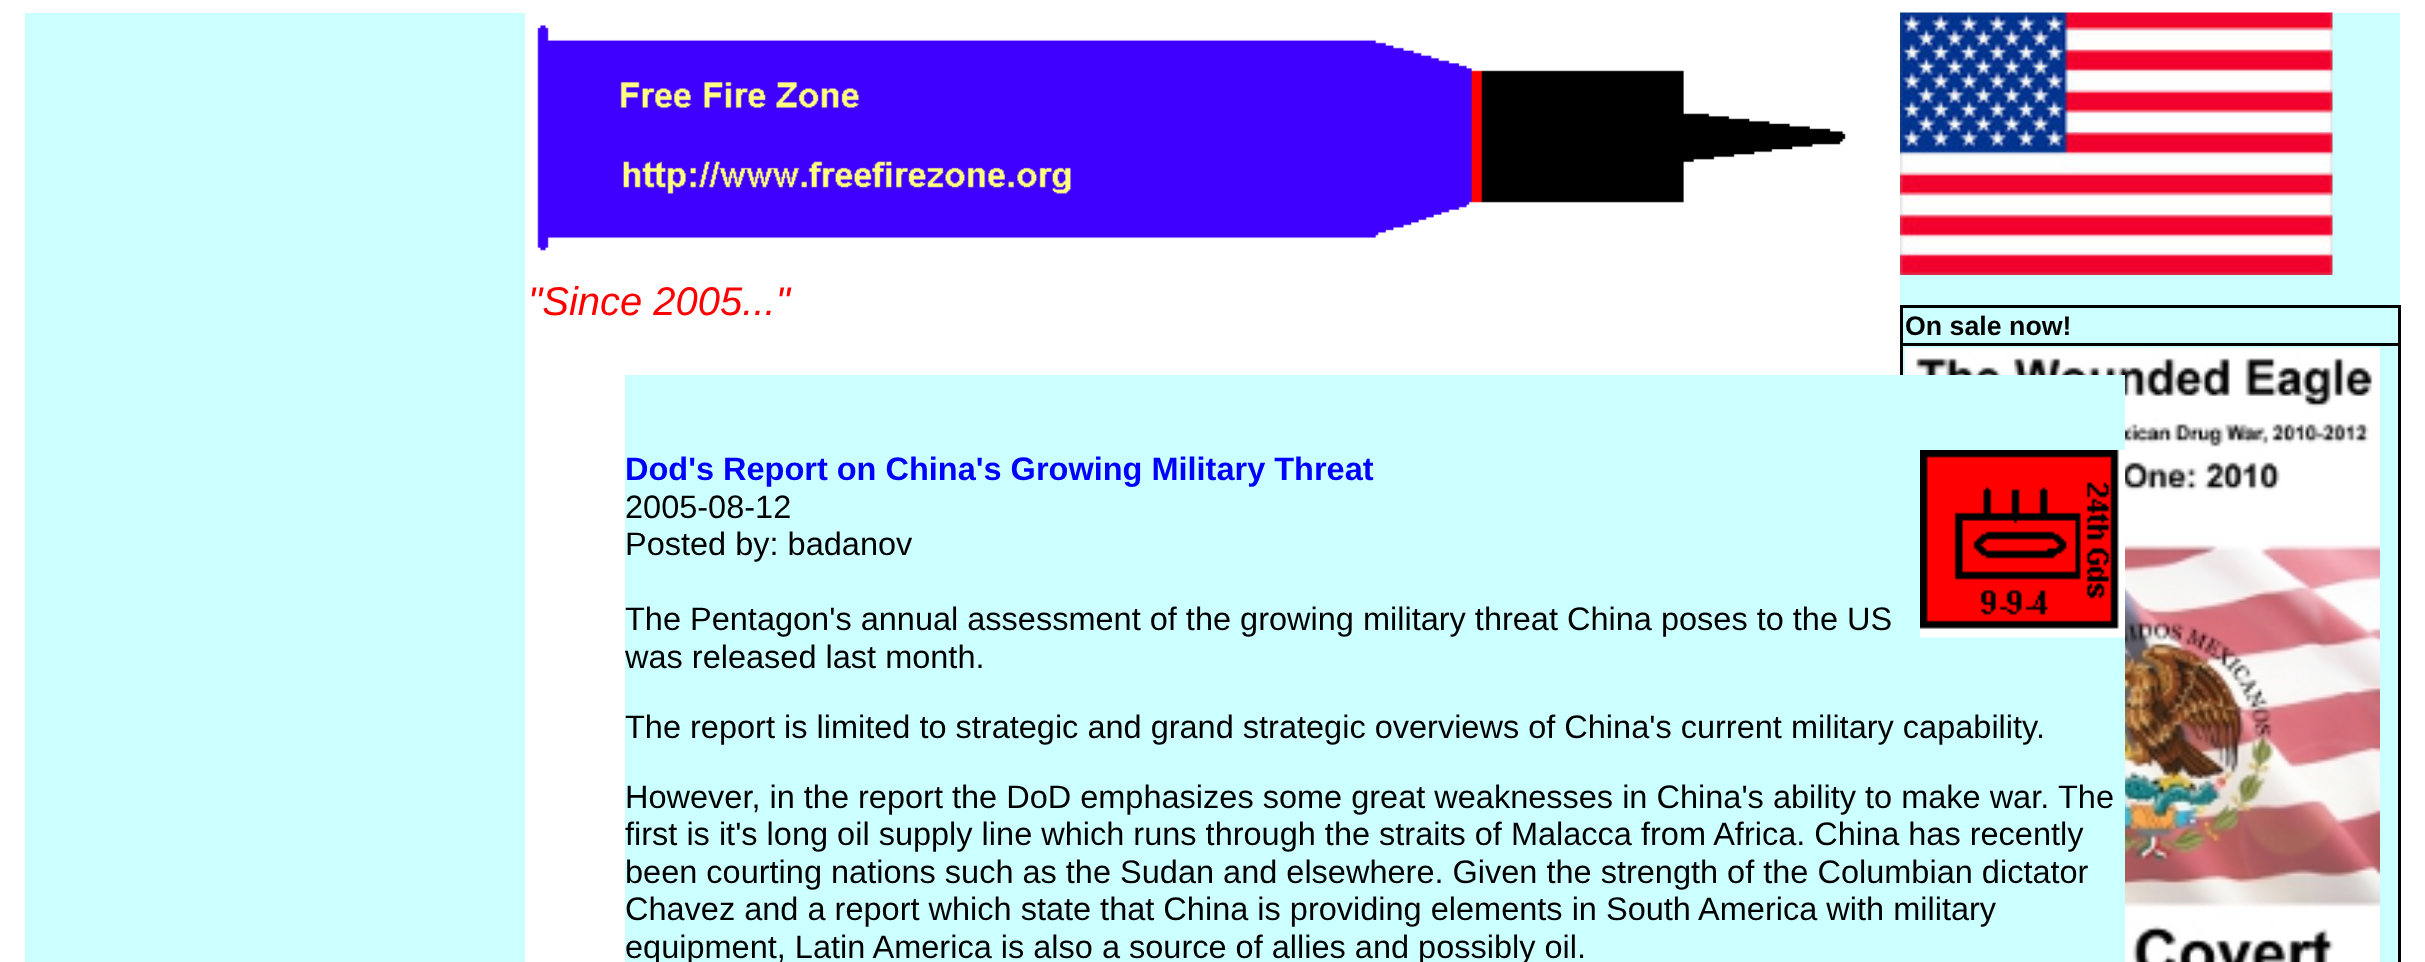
(async () => {
    const canvas = document.querySelector("canvas");
    canvas.width = 2425;
    canvas.height = 962;
    const context = canvas.getContext("2d");
    context.miterLimit = 4;
    context.fontKerning = "normal";
    function write(s, x, y, font, color) {
        context.font = font;
        context.fillStyle = color;
        context.fillText(s, x, y);
    }
    function block(x, y, w, h, color) {
        context.fillStyle = color;
        context.fillRect(x, y, w, h);
    }
    async function photo(src, x, y, w, h) {
        const img = new Image();
        img.src = src;
        await img.decode();
        context.drawImage(img, x, y, w, h);
    }

    block(0, 0, 2425, 962, "rgb(255, 255, 255)");
    block(25, 13, 500, 949, "rgb(204, 255, 255)");
    await photo("media/1.png", 537, 25, 1309, 226);
    write("\"Since 2005...\"", 528, 315, "italic 40px Liberation Sans", "rgb(255, 0, 0)");
    block(1900, 13, 500, 949, "rgb(204, 255, 255)");
    await photo("media/2.png", 1900, 12, 433, 263);
    block(1900, 305, 500, 3, "rgb(0, 0, 0)");
    block(2398, 305, 3, 657, "rgb(0, 0, 0)");
    block(1900, 305, 3, 70, "rgb(0, 0, 0)");
    write("On sale now!", 1905, 335, "bold 26.75px Liberation Sans", "rgb(0, 0, 0)");
    block(1900, 343, 500, 3, "rgb(0, 0, 0)");
    await photo("media/3.png", 1905, 347, 475, 615);
    block(625, 375, 1500, 587, "rgb(204, 255, 255)");
    write("Dod's Report on China's Growing Military Threat", 625, 480, "bold 32.5px Liberation Sans", "rgb(0, 0, 255)");
    await photo("media/4.png", 1920, 450, 205, 188);
    write("2005-08-12", 625, 518, "32.5px Liberation Sans", "rgb(0, 0, 0)");
    write("Posted by: badanov", 625, 555, "32.5px Liberation Sans", "rgb(0, 0, 0)");
    write("The Pentagon's annual assessment of the growing military threat China poses to the US", 625, 630, "32.5px Liberation Sans", "rgb(0, 0, 0)");
    write("was released last month.", 625, 668, "32.5px Liberation Sans", "rgb(0, 0, 0)");
    write("The report is limited to strategic and grand strategic overviews of China's current military capability.", 625, 738, "32.5px Liberation Sans", "rgb(0, 0, 0)");
    write("However, in the report the DoD emphasizes some great weaknesses in China's ability to make war.", 625, 808, "32.5px Liberation Sans", "rgb(0, 0, 0)");
    write("The", 2058, 808, "32.5px Liberation Sans", "rgb(0, 0, 0)");
    write("first is it's long oil supply line which runs through the straits of Malacca from Africa. China has recently", 625, 845, "32.5px Liberation Sans", "rgb(0, 0, 0)");
    write("been courting nations such as the Sudan and elsewhere. Given the strength of the Columbian dictator", 625, 883, "32.5px Liberation Sans", "rgb(0, 0, 0)");
    write("Chavez and a report which state that China is providing elements in South America with military", 625, 920, "32.5px Liberation Sans", "rgb(0, 0, 0)");
    write("equipment, Latin America is also a source of allies and possibly oil.", 625, 958, "32.5px Liberation Sans", "rgb(0, 0, 0)");
})();
